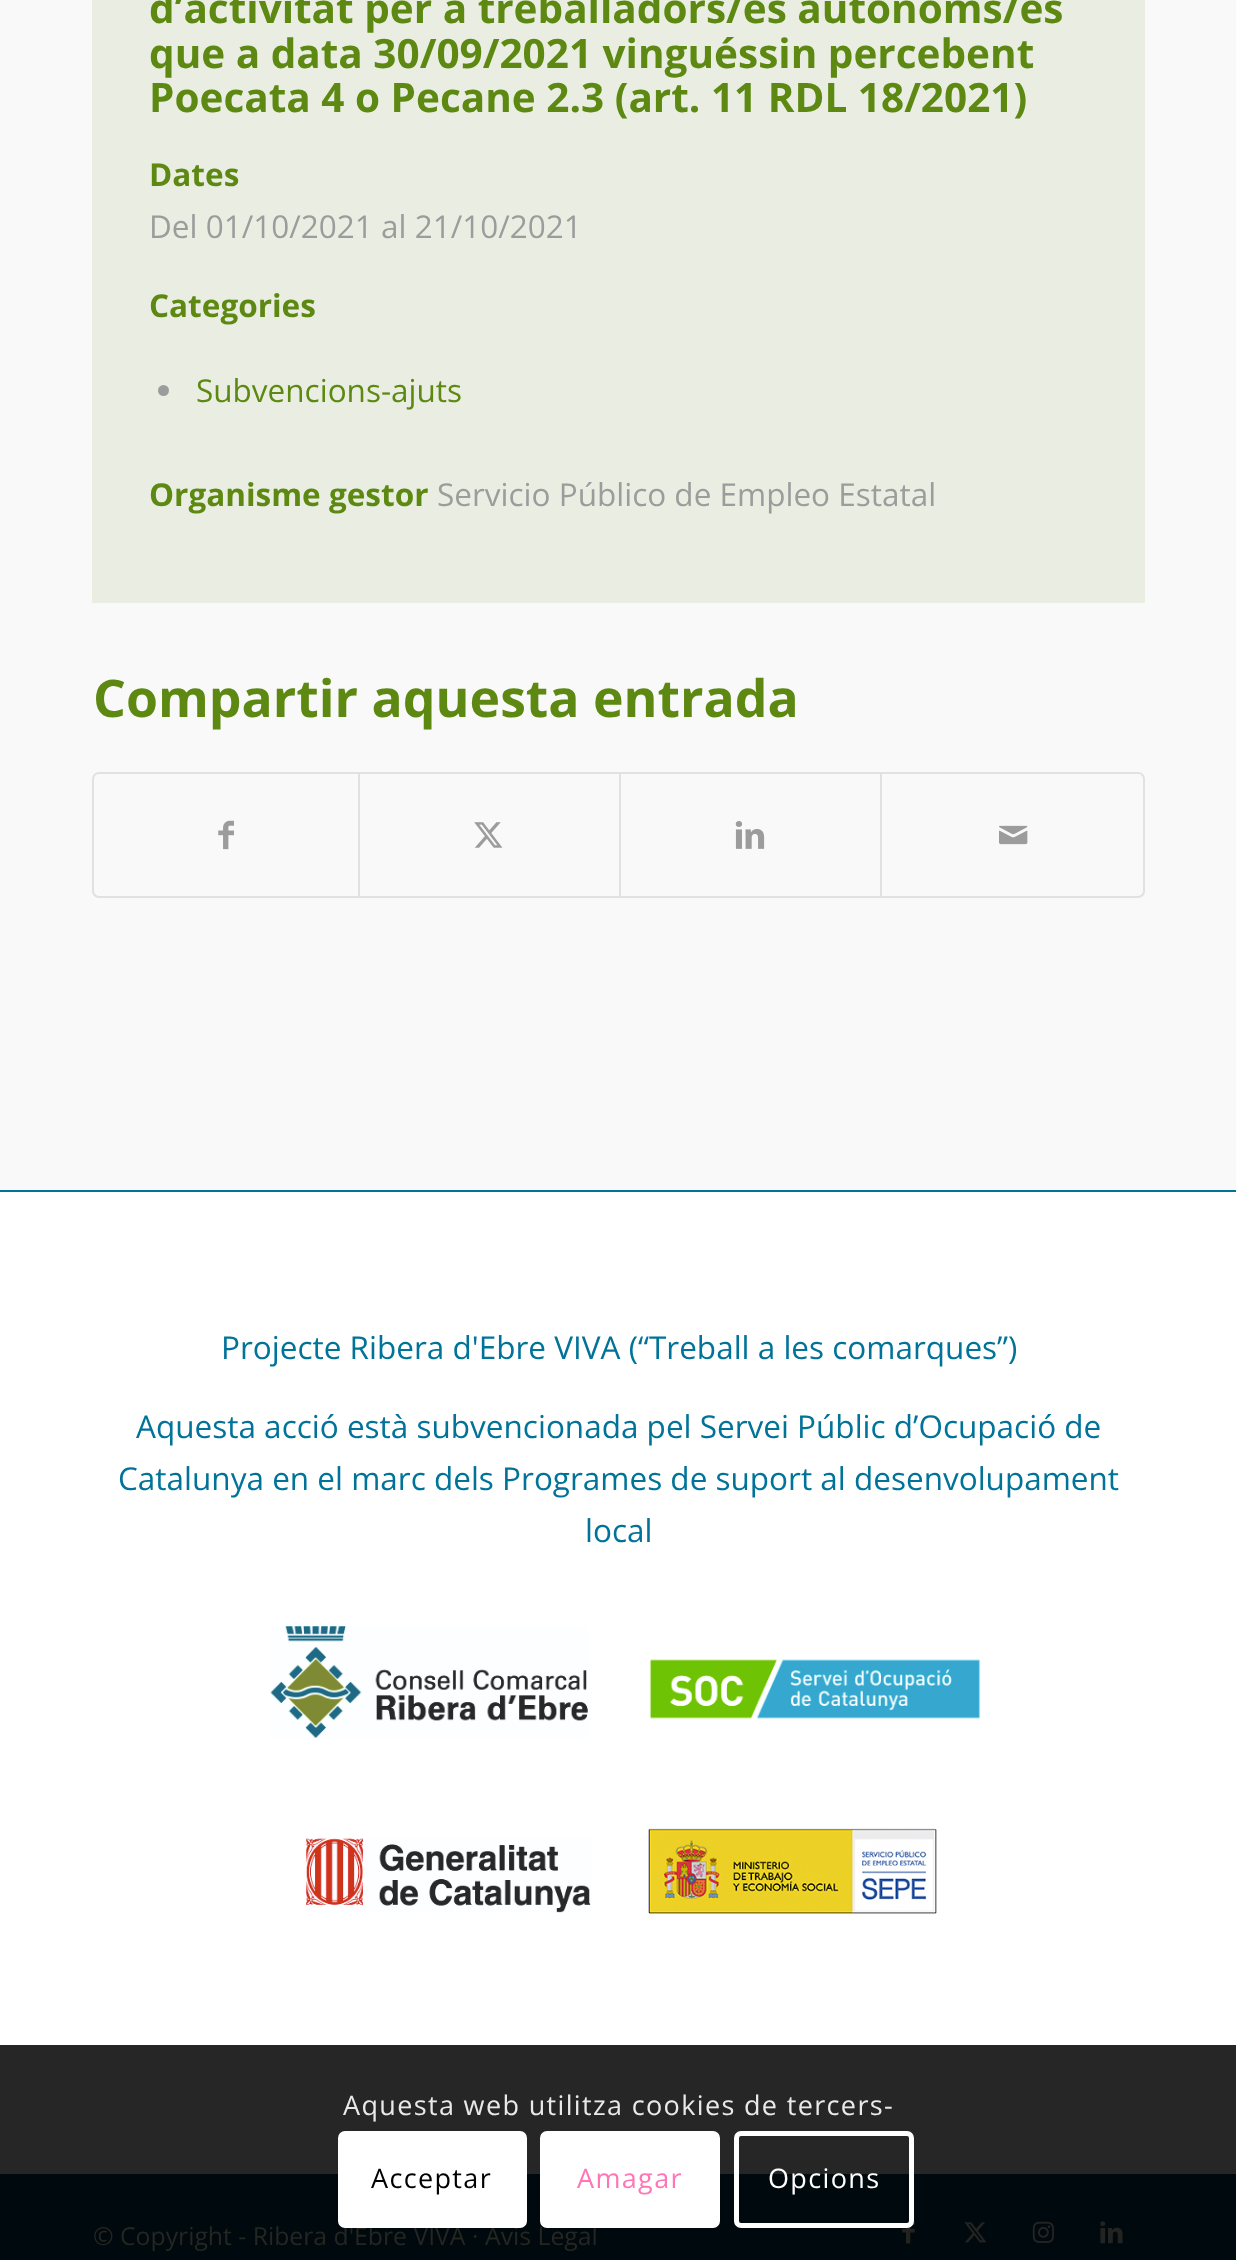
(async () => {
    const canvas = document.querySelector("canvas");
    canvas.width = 1236;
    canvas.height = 2260;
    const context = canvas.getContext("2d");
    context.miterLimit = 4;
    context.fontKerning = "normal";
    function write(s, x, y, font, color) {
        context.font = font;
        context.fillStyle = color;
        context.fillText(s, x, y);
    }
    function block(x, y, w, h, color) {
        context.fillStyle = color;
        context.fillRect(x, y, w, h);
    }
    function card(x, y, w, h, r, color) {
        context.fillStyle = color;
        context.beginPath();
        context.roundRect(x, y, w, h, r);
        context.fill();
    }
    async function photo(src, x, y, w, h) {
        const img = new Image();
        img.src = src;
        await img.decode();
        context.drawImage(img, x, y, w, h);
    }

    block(0, 0, 1236, 2260, "rgb(255, 255, 255)");
    block(0, 2045, 1236, 129, "rgb(38, 38, 38)");
    block(0, 0, 1236, 1190, "rgb(249, 249, 249)");
    block(92, 0, 1053, 603, "rgb(234, 238, 226)");
    write("d’activitat per a treballadors/es autònoms/es", 149, 23, "bold 40.5px Open Sans", "rgb(93, 137, 18)");
    write("que a data 30/09/2021 vinguéssin percebent", 149, 68, "bold 40.5px Open Sans", "rgb(93, 137, 18)");
    write("Poecata 4 o Pecane 2.3 (art. 11 RDL 18/2021)", 149, 112, "bold 40.5px Open Sans", "rgb(93, 137, 18)");
    write("Dates", 149, 186, "bold 31.5px Open Sans", "rgb(93, 137, 18)");
    write("Del 01/10/2021 al 21/10/2021", 149, 238, "31.5px Open Sans", "rgb(156, 156, 156)");
    write("Categories", 149, 317, "bold 31.5px Open Sans", "rgb(93, 137, 18)");
    context.fillStyle = "rgb(156, 156, 156)";
    context.beginPath();
    context.arc(163.5, 390.5, 5.5, 0, Math.PI * 2);
    context.fill();
    write("Subvencions-ajuts", 196, 402, "31.5px Open Sans", "rgb(93, 137, 18)");
    write("Organisme gestor", 149, 506, "bold 31.5px Open Sans", "rgb(93, 137, 18)");
    write("Servicio Público de Empleo Estatal", 437, 506, "31.5px Open Sans", "rgb(156, 156, 156)");
    write("Compartir aquesta entrada", 93, 717, "bold 51.75px Open Sans", "rgb(93, 137, 18)");
    context.beginPath();
    context.roundRect(93, 773, 1051, 124, 6);
    context.strokeStyle = "rgb(225, 225, 225)";
    context.lineWidth = 2;
    context.stroke();
    await photo("media/1.png", 218, 820, 16, 30);
    block(358, 774, 2, 122, "rgb(225, 225, 225)");
    await photo("media/2.png", 474, 822, 29, 26);
    block(619, 774, 2, 122, "rgb(225, 225, 225)");
    await photo("media/3.png", 735, 821, 30, 28);
    block(880, 774, 2, 122, "rgb(225, 225, 225)");
    await photo("media/4.png", 999, 825, 29, 20);
    block(0, 1190, 1236, 2, "rgb(1, 115, 153)");
    write("Projecte Ribera d'Ebre VIVA (“Treball a les comarques”)", 221, 1359, "31.5px Open Sans", "rgb(1, 115, 153)");
    write("Aquesta acció està subvencionada pel Servei Públic d’Ocupació de", 136, 1438, "31.5px Open Sans", "rgb(1, 115, 153)");
    write("Catalunya en el marc dels Programes de suport al desenvolupament", 118, 1490, "31.5px Open Sans", "rgb(1, 115, 153)");
    write("local", 585, 1542, "31.5px Open Sans", "rgb(1, 115, 153)");
    await photo("media/5.png", 270, 1626, 318, 112);
    await photo("media/6.png", 650, 1659, 331, 60);
    await photo("media/7.png", 306, 1838, 285, 75);
    await photo("media/8.png", 648, 1828, 289, 86);
    block(0, 2174, 1236, 86, "rgb(0, 9, 13)");
    write("© Copyright - Ribera d'Ebre VIVA ·", 93, 2245, "24.75px Open Sans", "rgb(36, 38, 33)");
    write("Avis Legal", 485, 2245, "24.75px Open Sans", "rgb(36, 38, 33)");
    await photo("media/9.png", 902, 2221, 13, 23);
    await photo("media/10.png", 964, 2222, 23, 21);
    await photo("media/11.png", 1032, 2221, 22, 22);
    await photo("media/12.png", 1100, 2221, 23, 23);
    context.letterSpacing = "1.35px";
    write("Aquesta web utilitza cookies de tercers-", 343, 2115, "27px Open Sans", "rgb(233, 233, 233)");
    card(338, 2131, 189, 97, 7, "rgb(255, 255, 255)");
    write("Acceptar", 371, 2188, "27px Open Sans", "rgb(0, 0, 0)");
    context.fillStyle = "rgb(255, 255, 255)";
    context.beginPath();
    context.roundRect(542.5, 2133.5, 175, 92, 4.5);
    context.fill();
    context.strokeStyle = "rgb(255, 255, 255)";
    context.lineWidth = 5;
    context.stroke();
    write("Amagar", 577, 2188, "27px Open Sans", "rgb(255, 117, 181)");
    context.beginPath();
    context.roundRect(736.5, 2133.5, 175, 92, 4.5);
    context.stroke();
    write("Opcions", 768, 2188, "27px Open Sans", "rgb(255, 255, 255)");
})();
